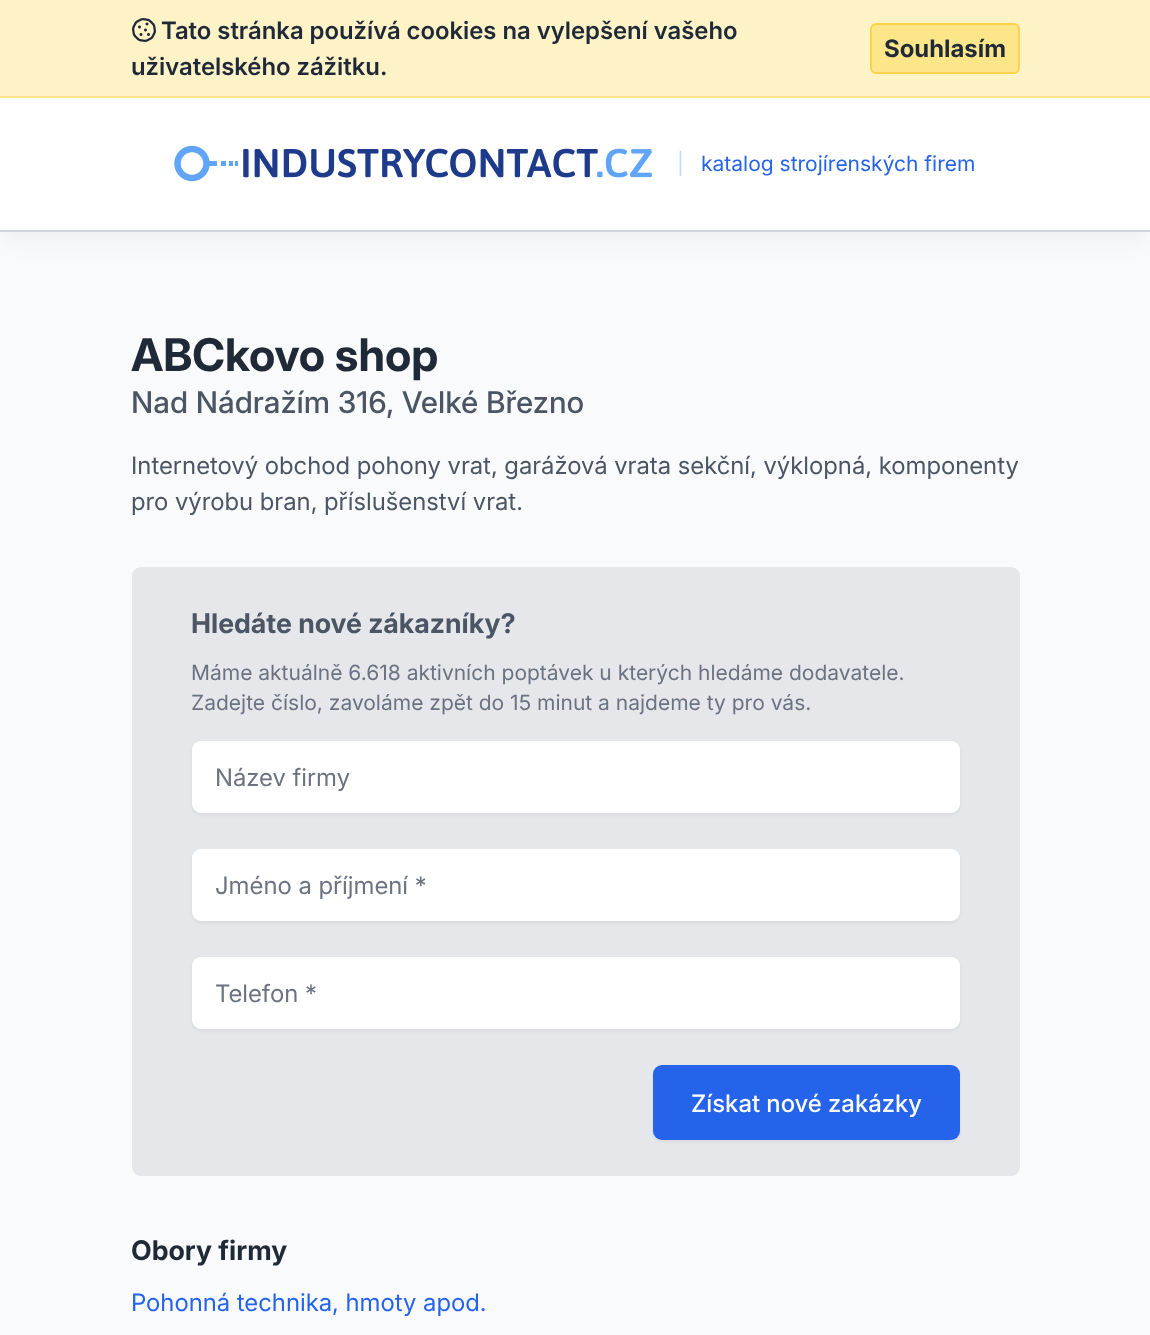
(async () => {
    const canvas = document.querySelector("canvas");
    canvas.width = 1150;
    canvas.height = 1335;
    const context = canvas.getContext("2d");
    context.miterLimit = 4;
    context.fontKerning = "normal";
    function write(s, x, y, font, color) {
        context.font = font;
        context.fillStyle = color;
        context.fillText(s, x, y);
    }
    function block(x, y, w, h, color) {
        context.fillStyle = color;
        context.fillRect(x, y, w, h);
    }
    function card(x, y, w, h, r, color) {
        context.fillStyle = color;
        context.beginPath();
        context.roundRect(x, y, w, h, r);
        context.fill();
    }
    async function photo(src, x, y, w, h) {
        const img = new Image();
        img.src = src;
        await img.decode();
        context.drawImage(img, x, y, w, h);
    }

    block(0, 0, 1150, 1335, "rgb(254, 243, 199)");
    block(0, 96, 1150, 2, "rgb(253, 230, 138)");
    await photo("media/1.png", 132, 18, 24, 24);
    write("Tato stránka používá cookies na vylepšení vašeho", 161, 39, "600 24px Inter", "rgb(31, 41, 55)");
    write("uživatelského zážitku.", 131, 75, "600 24px Inter", "rgb(31, 41, 55)");
    context.fillStyle = "rgb(253, 230, 138)";
    context.beginPath();
    context.roundRect(871, 24, 148, 49, 5);
    context.fill();
    context.strokeStyle = "rgb(252, 211, 77)";
    context.lineWidth = 2;
    context.stroke();
    write("Souhlasím", 884, 57, "bold 24px Inter", "rgb(31, 41, 55)");
    block(0, 232, 1150, 1103, "rgb(249, 250, 251)");
    context.fillStyle = "rgba(0, 0, 0, 0.04)";
    context.filter = "blur(11px)";
    context.beginPath();
    context.rect(5, 117, 1141, 125);
    context.fill();
    context.filter = "none";
    block(0, 98, 1150, 132, "rgb(255, 255, 255)");
    block(0, 230, 1150, 2, "rgb(209, 213, 219)");
    await photo("media/2.png", 174, 146, 478, 36);
    write("|", 677, 171, "21px Inter", "rgb(191, 219, 254)");
    write("katalog strojírenských firem", 701, 171, "21px Inter", "rgb(37, 99, 235)");
    write("ABCkovo shop", 131, 371, "bold 45px 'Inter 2'", "rgb(31, 41, 55)");
    write("Nad Nádražím 316, Velké Březno", 131, 413, "500 30px Inter", "rgb(75, 85, 99)");
    write("Internetový obchod pohony vrat, garážová vrata sekční, výklopná, komponenty", 131, 474, "24px 'Inter 2'", "rgb(75, 85, 99)");
    write("pro výrobu bran, příslušenství vrat.", 131, 510, "24px 'Inter 2'", "rgb(75, 85, 99)");
    card(132, 567, 888, 609, 9, "rgb(229, 231, 235)");
    write("Hledáte nové zákazníky?", 191, 633, "bold 27px 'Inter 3'", "rgb(75, 85, 99)");
    write("Máme aktuálně 6.618 aktivních poptávek u kterých hledáme dodavatele.", 191, 680, "21px Inter", "rgb(107, 114, 128)");
    write("Zadejte číslo, zavoláme zpět do 15 minut a najdeme ty pro vás.", 191, 710, "21px Inter", "rgb(107, 114, 128)");
    context.fillStyle = "rgba(0, 0, 0, 0.05)";
    context.filter = "blur(1.5px)";
    context.beginPath();
    context.roundRect(192, 743, 768, 72, 9);
    context.fill();
    context.filter = "none";
    card(192, 741, 768, 72, 9, "rgb(255, 255, 255)");
    write("Název firmy", 215, 786, "24px 'Inter 2'", "rgb(107, 114, 128)");
    context.fillStyle = "rgba(0, 0, 0, 0.05)";
    context.filter = "blur(1.5px)";
    context.beginPath();
    context.roundRect(192, 851, 768, 72, 9);
    context.fill();
    context.filter = "none";
    card(192, 849, 768, 72, 9, "rgb(255, 255, 255)");
    write("Jméno a příjmení *", 215, 894, "24px 'Inter 2'", "rgb(107, 114, 128)");
    context.fillStyle = "rgba(0, 0, 0, 0.05)";
    context.filter = "blur(1.5px)";
    context.beginPath();
    context.roundRect(192, 959, 768, 72, 9);
    context.fill();
    context.filter = "none";
    card(192, 957, 768, 72, 9, "rgb(255, 255, 255)");
    write("Telefon *", 215, 1002, "24px 'Inter 2'", "rgb(107, 114, 128)");
    context.fillStyle = "rgba(0, 0, 0, 0.05)";
    context.filter = "blur(1.5px)";
    context.beginPath();
    context.roundRect(653, 1067, 307, 75, 9);
    context.fill();
    context.filter = "none";
    card(653, 1065, 307, 75, 9, "rgb(37, 99, 235)");
    write("Získat nové zakázky", 691, 1112, "500 24px 'Inter 2'", "rgb(255, 255, 255)");
    write("Obory firmy", 131, 1260, "bold 27px 'Inter 3'", "rgb(31, 41, 55)");
    write("Pohonná technika, hmoty apod.", 131, 1311, "24px 'Inter 2'", "rgb(37, 99, 235)");
})();
